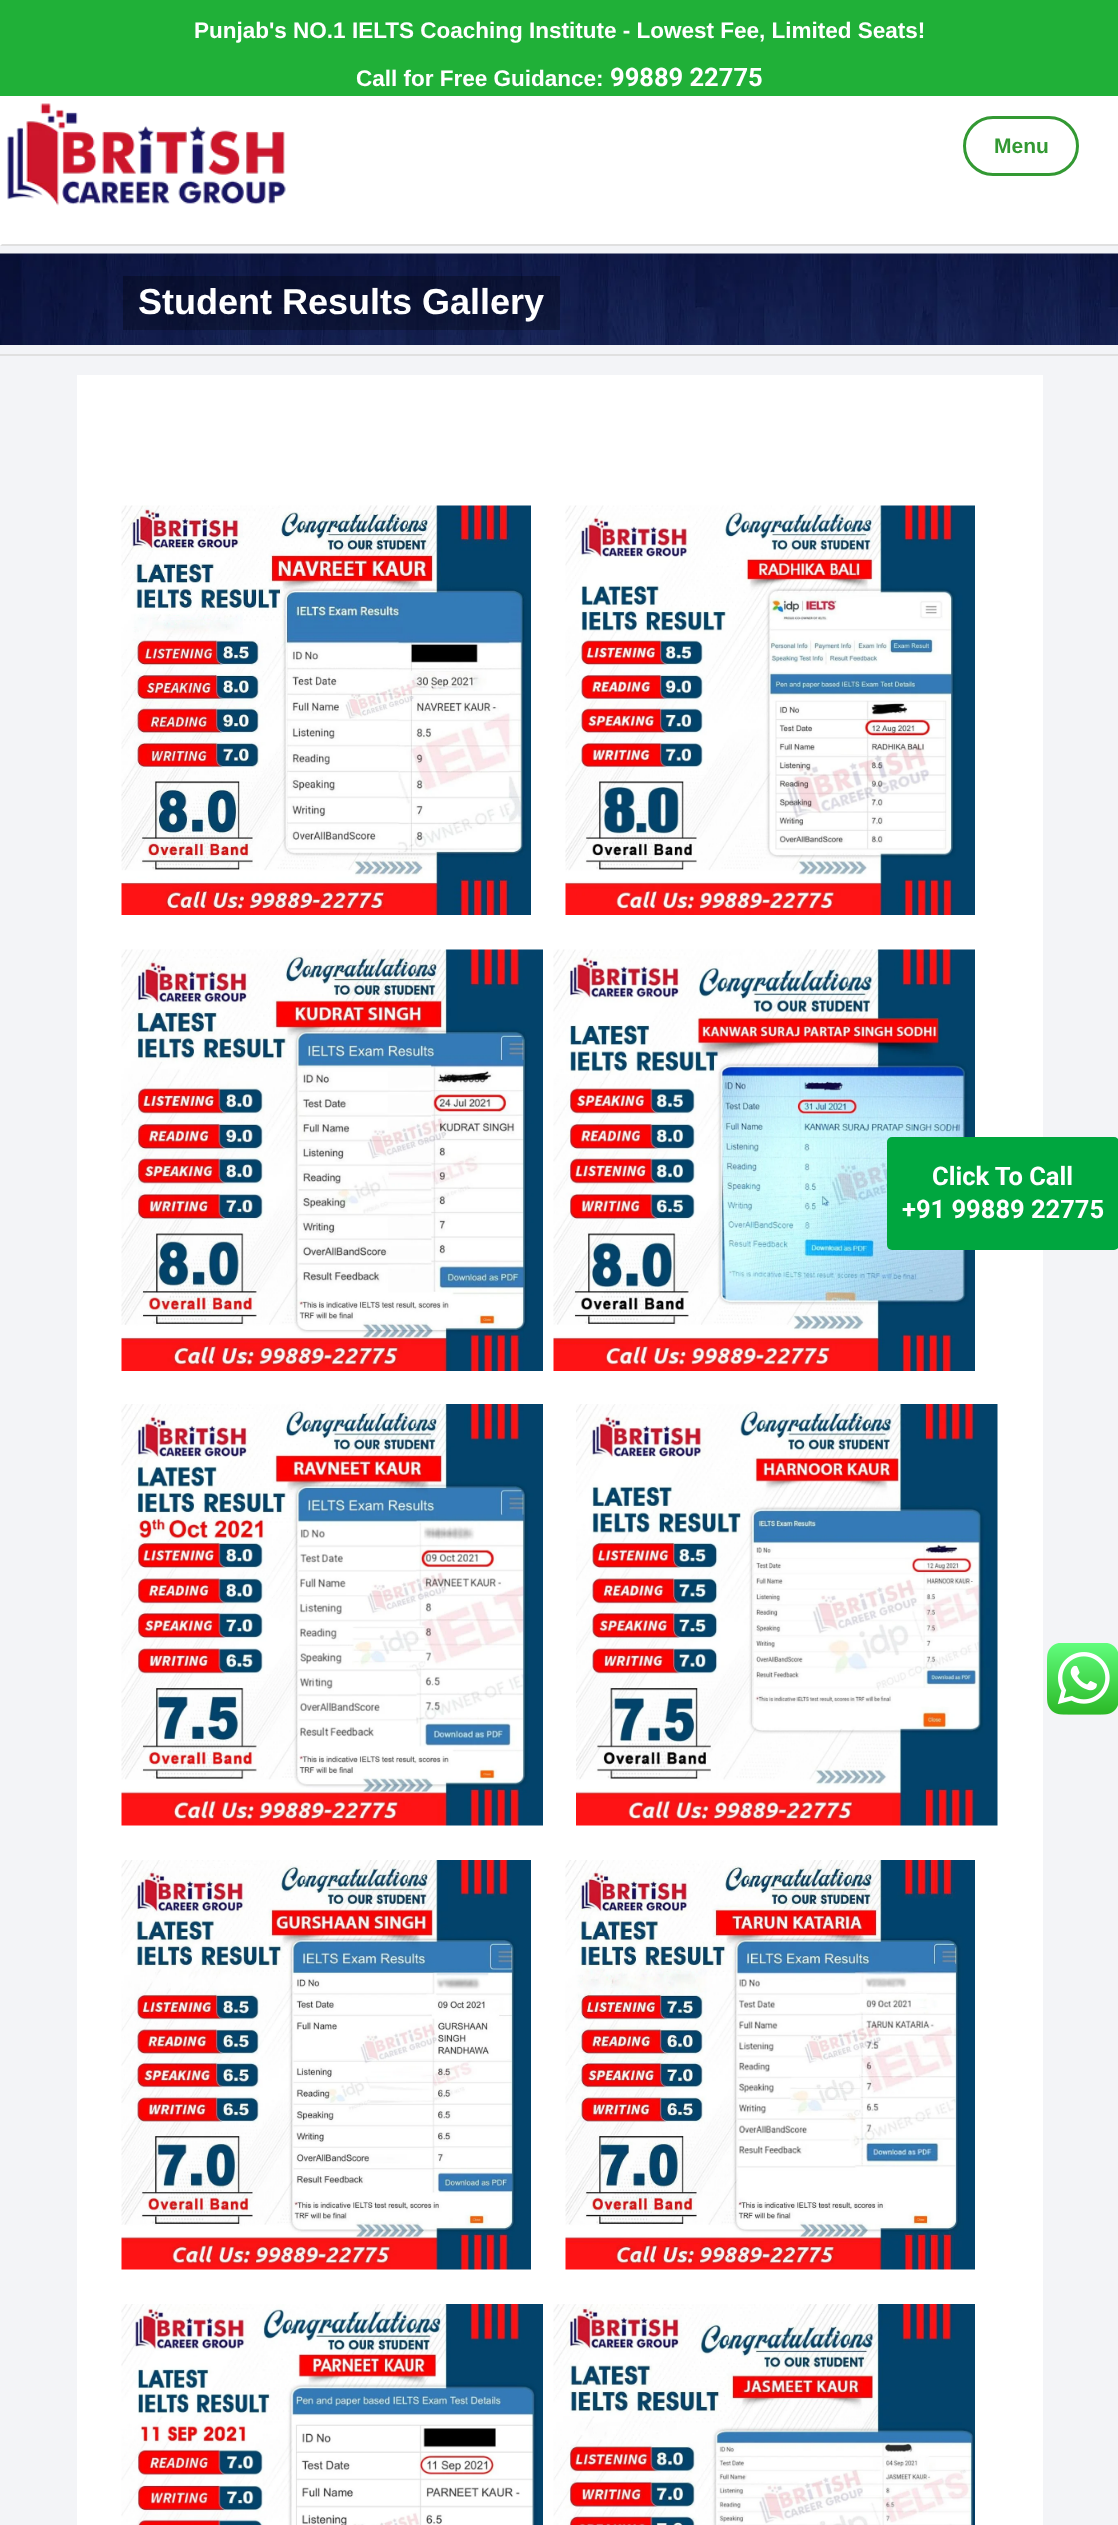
(async () => {
    const canvas = document.querySelector("canvas");
    canvas.width = 1118;
    canvas.height = 2525;
    const context = canvas.getContext("2d");
    context.miterLimit = 4;
    context.fontKerning = "normal";
    function write(s, x, y, font, color) {
        context.font = font;
        context.fillStyle = color;
        context.fillText(s, x, y);
    }
    function block(x, y, w, h, color) {
        context.fillStyle = color;
        context.fillRect(x, y, w, h);
    }
    function card(x, y, w, h, r, color) {
        context.fillStyle = color;
        context.beginPath();
        context.roundRect(x, y, w, h, r);
        context.fill();
    }
    async function photo(src, x, y, w, h) {
        const img = new Image();
        img.src = src;
        await img.decode();
        context.drawImage(img, x, y, w, h);
    }

    block(0, 0, 1118, 2525, "rgb(243, 244, 247)");
    block(0, 0, 1118, 96, "rgb(32, 176, 56)");
    write("Punjab's NO.1 IELTS Coaching Institute - Lowest Fee, Limited Seats!", 194, 38, "bold 22.5px Liberation Sans", "rgb(255, 255, 255)");
    write("Call for Free Guidance:", 356, 86, "bold 22.5px Liberation Sans", "rgb(255, 255, 255)");
    write("99889 22775", 610, 86, "bold 25.5px Roboto", "rgb(255, 255, 255)");
    block(0, 96, 1118, 150, "rgb(255, 255, 255)");
    context.fillStyle = "rgb(224, 224, 224)";
    context.beginPath();
    context.moveTo(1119, 246);
    context.lineTo(0, 246);
    context.lineTo(2, 244);
    context.lineTo(1118, 244);
    context.closePath();
    context.fill();
    await photo("media/1.png", 7, 103, 279, 103);
    context.beginPath();
    context.roundRect(964.5, 117.5, 113, 57, 28.5);
    context.strokeStyle = "rgb(51, 153, 51)";
    context.lineWidth = 3;
    context.stroke();
    write("Menu", 994, 153, "bold 21px Liberation Sans", "rgb(51, 153, 51)");
    await photo("media/2.png", 0, 253, 1118, 92);
    block(123, 276, 437, 54, "rgba(0, 0, 0, 0.28)");
    write("Student Results Gallery", 138, 314, "bold 36px Liberation Sans", "rgb(255, 255, 255)");
    block(0, 354, 1118, 2, "rgb(224, 224, 224)");
    block(77, 375, 966, 2150, "rgb(255, 255, 255)");
    await photo("media/3.png", 121, 505, 410, 410);
    await photo("media/4.png", 565, 505, 410, 410);
    await photo("media/5.png", 121, 949, 422, 422);
    await photo("media/6.png", 553, 949, 422, 422);
    await photo("media/7.png", 121, 1404, 422, 422);
    await photo("media/8.png", 576, 1404, 422, 422);
    await photo("media/9.png", 121, 1860, 410, 410);
    await photo("media/10.png", 565, 1860, 410, 410);
    await photo("media/11.png", 121, 2304, 422, 221);
    await photo("media/12.png", 553, 2304, 422, 221);
    card(887, 1137, 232, 113, 5, "rgb(0, 166, 63)");
    write("Click To Call", 932, 1185, "bold 25.5px Roboto", "rgb(255, 255, 255)");
    write("+91 99889 22775", 902, 1218, "bold 25.5px Roboto", "rgb(255, 255, 255)");
    await photo("media/13.png", 1047, 1643, 71, 72);
})();
